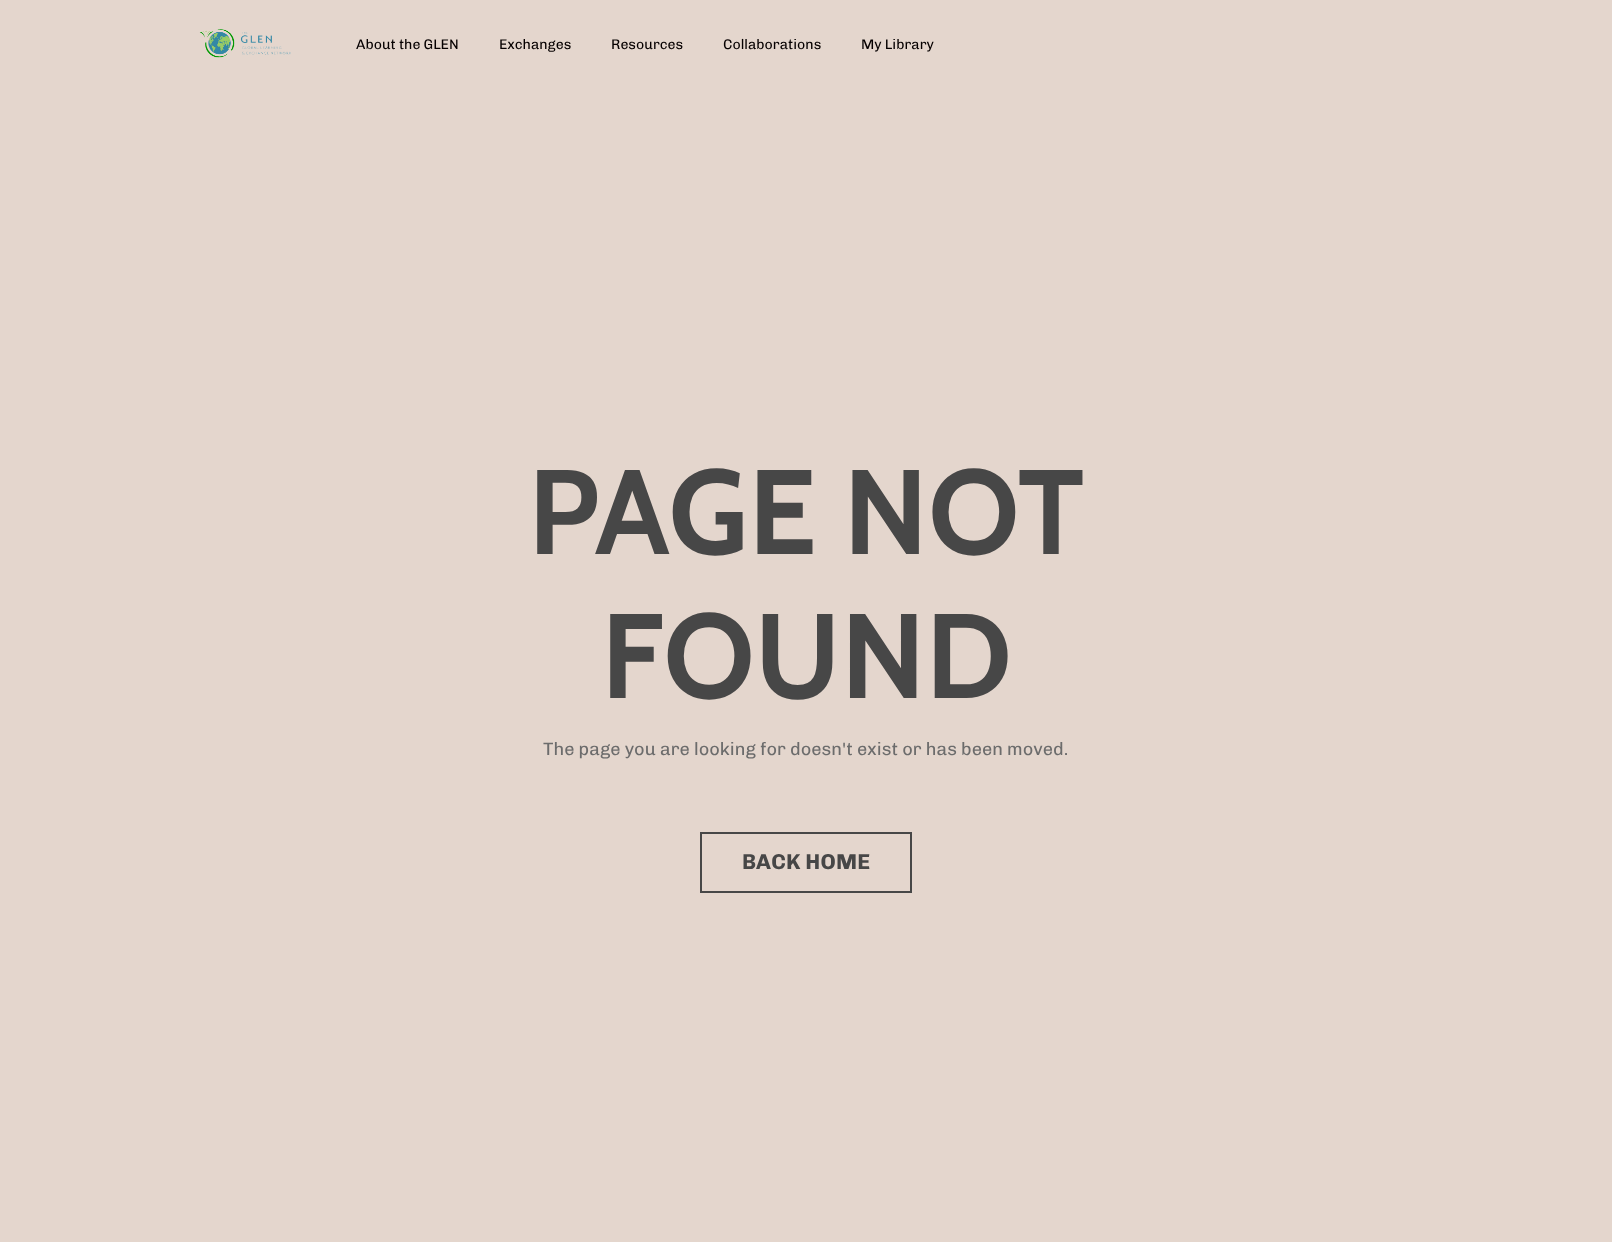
(async () => {
    const canvas = document.querySelector("canvas");
    canvas.width = 1612;
    canvas.height = 1242;
    const context = canvas.getContext("2d");
    context.miterLimit = 4;
    context.fontKerning = "normal";
    function write(s, x, y, font, color) {
        context.font = font;
        context.fillStyle = color;
        context.fillText(s, x, y);
    }
    function block(x, y, w, h, color) {
        context.fillStyle = color;
        context.fillRect(x, y, w, h);
    }
    async function photo(src, x, y, w, h) {
        const img = new Image();
        img.src = src;
        await img.decode();
        context.drawImage(img, x, y, w, h);
    }

    block(0, 0, 1612, 1242, "rgb(228, 214, 205)");
    await photo("media/1.png", 199, 29, 92, 29);
    write("About the GLEN", 356, 49, "14px Chivo", "rgb(6, 0, 0)");
    write("Exchanges", 499, 49, "14px Chivo", "rgb(6, 0, 0)");
    write("Resources", 611, 49, "14px Chivo", "rgb(6, 0, 0)");
    write("Collaborations", 723, 49, "14px Chivo", "rgb(6, 0, 0)");
    write("My Library", 861, 49, "14px Chivo", "rgb(6, 0, 0)");
    write("PAGE NOT", 528, 554, "bold 120px Cabin", "rgb(71, 71, 71)");
    write("FOUND", 601, 698, "bold 120px Cabin", "rgb(71, 71, 71)");
    write("The page you are looking for doesn't exist or has been moved.", 543, 755, "18px Chivo", "rgb(108, 108, 108)");
    context.strokeStyle = "rgb(71, 71, 71)";
    context.lineWidth = 2;
    context.strokeRect(701, 833, 210, 59);
    context.letterSpacing = "0.25px";
    write("BACK HOME", 742, 869, "bold 21.5px Chivo", "rgb(71, 71, 71)");
})();
